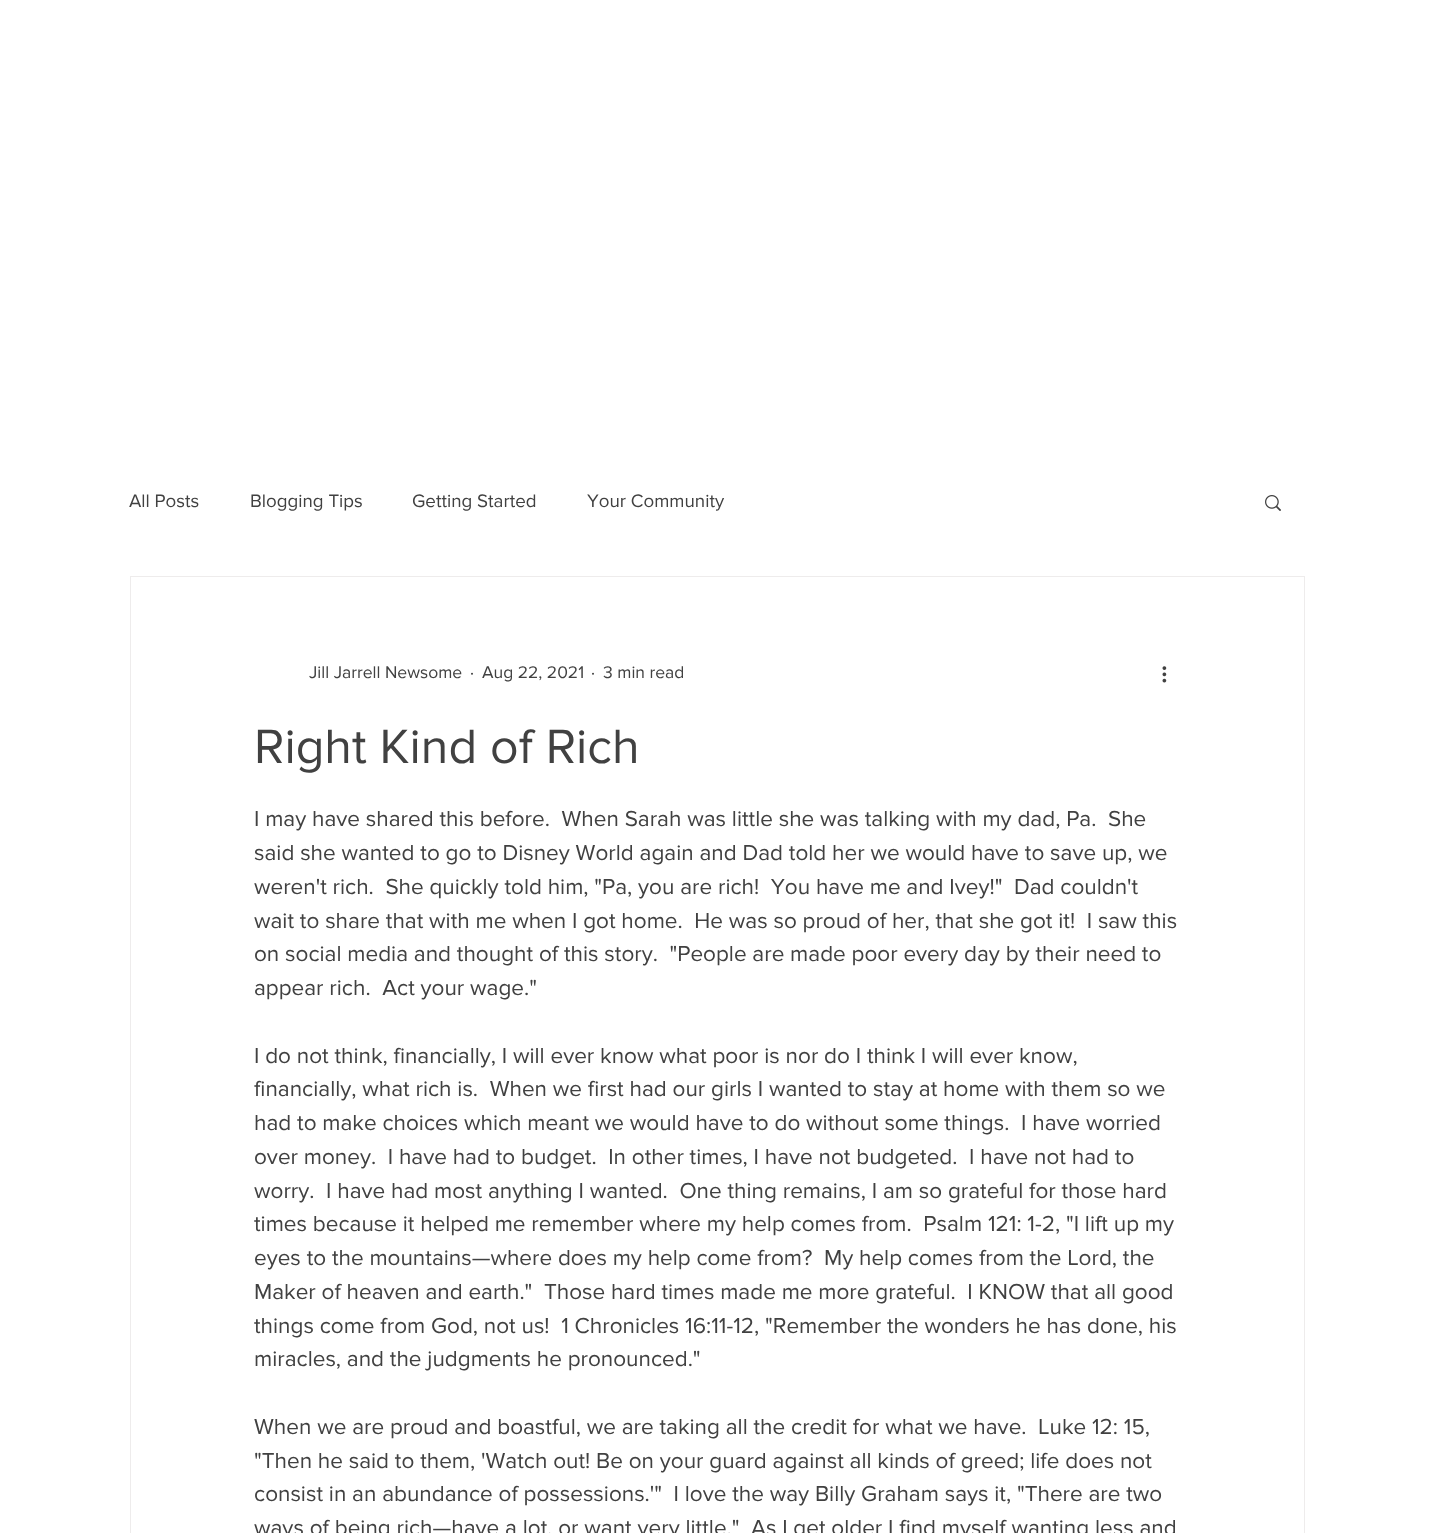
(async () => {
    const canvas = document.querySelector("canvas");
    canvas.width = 1433;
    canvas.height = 1533;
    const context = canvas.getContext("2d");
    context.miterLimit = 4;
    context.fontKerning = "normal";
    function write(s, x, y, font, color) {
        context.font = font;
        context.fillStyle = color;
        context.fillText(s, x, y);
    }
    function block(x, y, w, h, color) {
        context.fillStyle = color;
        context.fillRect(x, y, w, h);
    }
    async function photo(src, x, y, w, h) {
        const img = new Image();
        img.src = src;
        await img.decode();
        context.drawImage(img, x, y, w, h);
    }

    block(0, 0, 1433, 1533, "rgb(255, 255, 255)");
    write("All Posts", 129, 507, "18.75px 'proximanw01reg'", "rgb(65, 65, 65)");
    write("Blogging Tips", 250, 507, "18.75px 'proximanw01reg'", "rgb(65, 65, 65)");
    write("Getting Started", 412, 507, "18.75px 'proximanw01reg'", "rgb(65, 65, 65)");
    write("Your Community", 587, 507, "18.75px 'proximanw01reg'", "rgb(65, 65, 65)");
    await photo("media/1.png", 1265, 495, 16, 16);
    context.strokeStyle = "rgb(238, 236, 236)";
    context.strokeRect(130.5, 576.5, 1174, 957);
    write("Jill Jarrell Newsome", 309, 678, "17.5px 'proximanw01reg'", "rgb(65, 65, 65)");
    write("·", 470, 678, "17.5px 'proximanw01reg'", "rgb(65, 65, 65)");
    write("Aug 22, 2021", 482, 678, "17.5px 'proximanw01reg'", "rgb(65, 65, 65)");
    write("·", 591, 678, "17.5px 'proximanw01reg'", "rgb(65, 65, 65)");
    write("3 min read", 603, 678, "17.5px 'proximanw01reg'", "rgb(65, 65, 65)");
    await photo("media/2.png", 1162, 666, 5, 17);
    write("Right Kind of Rich", 254, 763, "50px 'proximanw01reg'", "rgb(65, 65, 65)");
    write("I may have shared this before.  When Sarah was little she was talking with my dad, Pa.  She", 254, 826, "22.5px 'proximanw01reg'", "rgb(65, 65, 65)");
    write("said she wanted to go to Disney World again and Dad told her we would have to save up, we", 254, 860, "22.5px 'proximanw01reg'", "rgb(65, 65, 65)");
    write("weren't rich.  She quickly told him, \"Pa, you are rich!  You have me and Ivey!\"  Dad couldn't", 254, 894, "22.5px 'proximanw01reg'", "rgb(65, 65, 65)");
    write("wait to share that with me when I got home.  He was so proud of her, that she got it!  I saw this", 254, 928, "22.5px 'proximanw01reg'", "rgb(65, 65, 65)");
    write("on social media and thought of this story.  \"People are made poor every day by their need to", 254, 961, "22.5px 'proximanw01reg'", "rgb(65, 65, 65)");
    write("appear rich.  Act your wage.\"", 254, 995, "22.5px 'proximanw01reg'", "rgb(65, 65, 65)");
    write("I do not think, financially, I will ever know what poor is nor do I think I will ever know,", 254, 1063, "22.5px 'proximanw01reg'", "rgb(65, 65, 65)");
    write("financially, what rich is.  When we first had our girls I wanted to stay at home with them so we", 254, 1096, "22.5px 'proximanw01reg'", "rgb(65, 65, 65)");
    write("had to make choices which meant we would have to do without some things.  I have worried", 254, 1130, "22.5px 'proximanw01reg'", "rgb(65, 65, 65)");
    write("over money.  I have had to budget.  In other times, I have not budgeted.  I have not had to", 254, 1164, "22.5px 'proximanw01reg'", "rgb(65, 65, 65)");
    write("worry.  I have had most anything I wanted.  One thing remains, I am so grateful for those hard", 254, 1198, "22.5px 'proximanw01reg'", "rgb(65, 65, 65)");
    write("times because it helped me remember where my help comes from.  Psalm 121: 1-2, \"I lift up my", 254, 1231, "22.5px 'proximanw01reg'", "rgb(65, 65, 65)");
    write("eyes to the mountains—where does my help come from?  My help comes from the Lord, the", 254, 1265, "22.5px 'proximanw01reg'", "rgb(65, 65, 65)");
    write("Maker of heaven and earth.\"  Those hard times made me more grateful.  I KNOW that all good", 254, 1299, "22.5px 'proximanw01reg'", "rgb(65, 65, 65)");
    write("things come from God, not us!  1 Chronicles 16:11-12, \"Remember the wonders he has done, his", 254, 1333, "22.5px 'proximanw01reg'", "rgb(65, 65, 65)");
    write("miracles, and the judgments he pronounced.\"", 254, 1366, "22.5px 'proximanw01reg'", "rgb(65, 65, 65)");
    write("When we are proud and boastful, we are taking all the credit for what we have.  Luke 12: 15,", 254, 1434, "22.5px 'proximanw01reg'", "rgb(65, 65, 65)");
    write("\"Then he said to them, 'Watch out! Be on your guard against all kinds of greed; life does not", 254, 1468, "22.5px 'proximanw01reg'", "rgb(65, 65, 65)");
    write("consist in an abundance of possessions.'\"  I love the way Billy Graham says it, \"There are two", 254, 1501, "22.5px 'proximanw01reg'", "rgb(65, 65, 65)");
    write("ways of being rich—have a lot, or want very little.\"  As I get older I find myself wanting less and", 254, 1535, "22.5px 'proximanw01reg'", "rgb(65, 65, 65)");
})();
